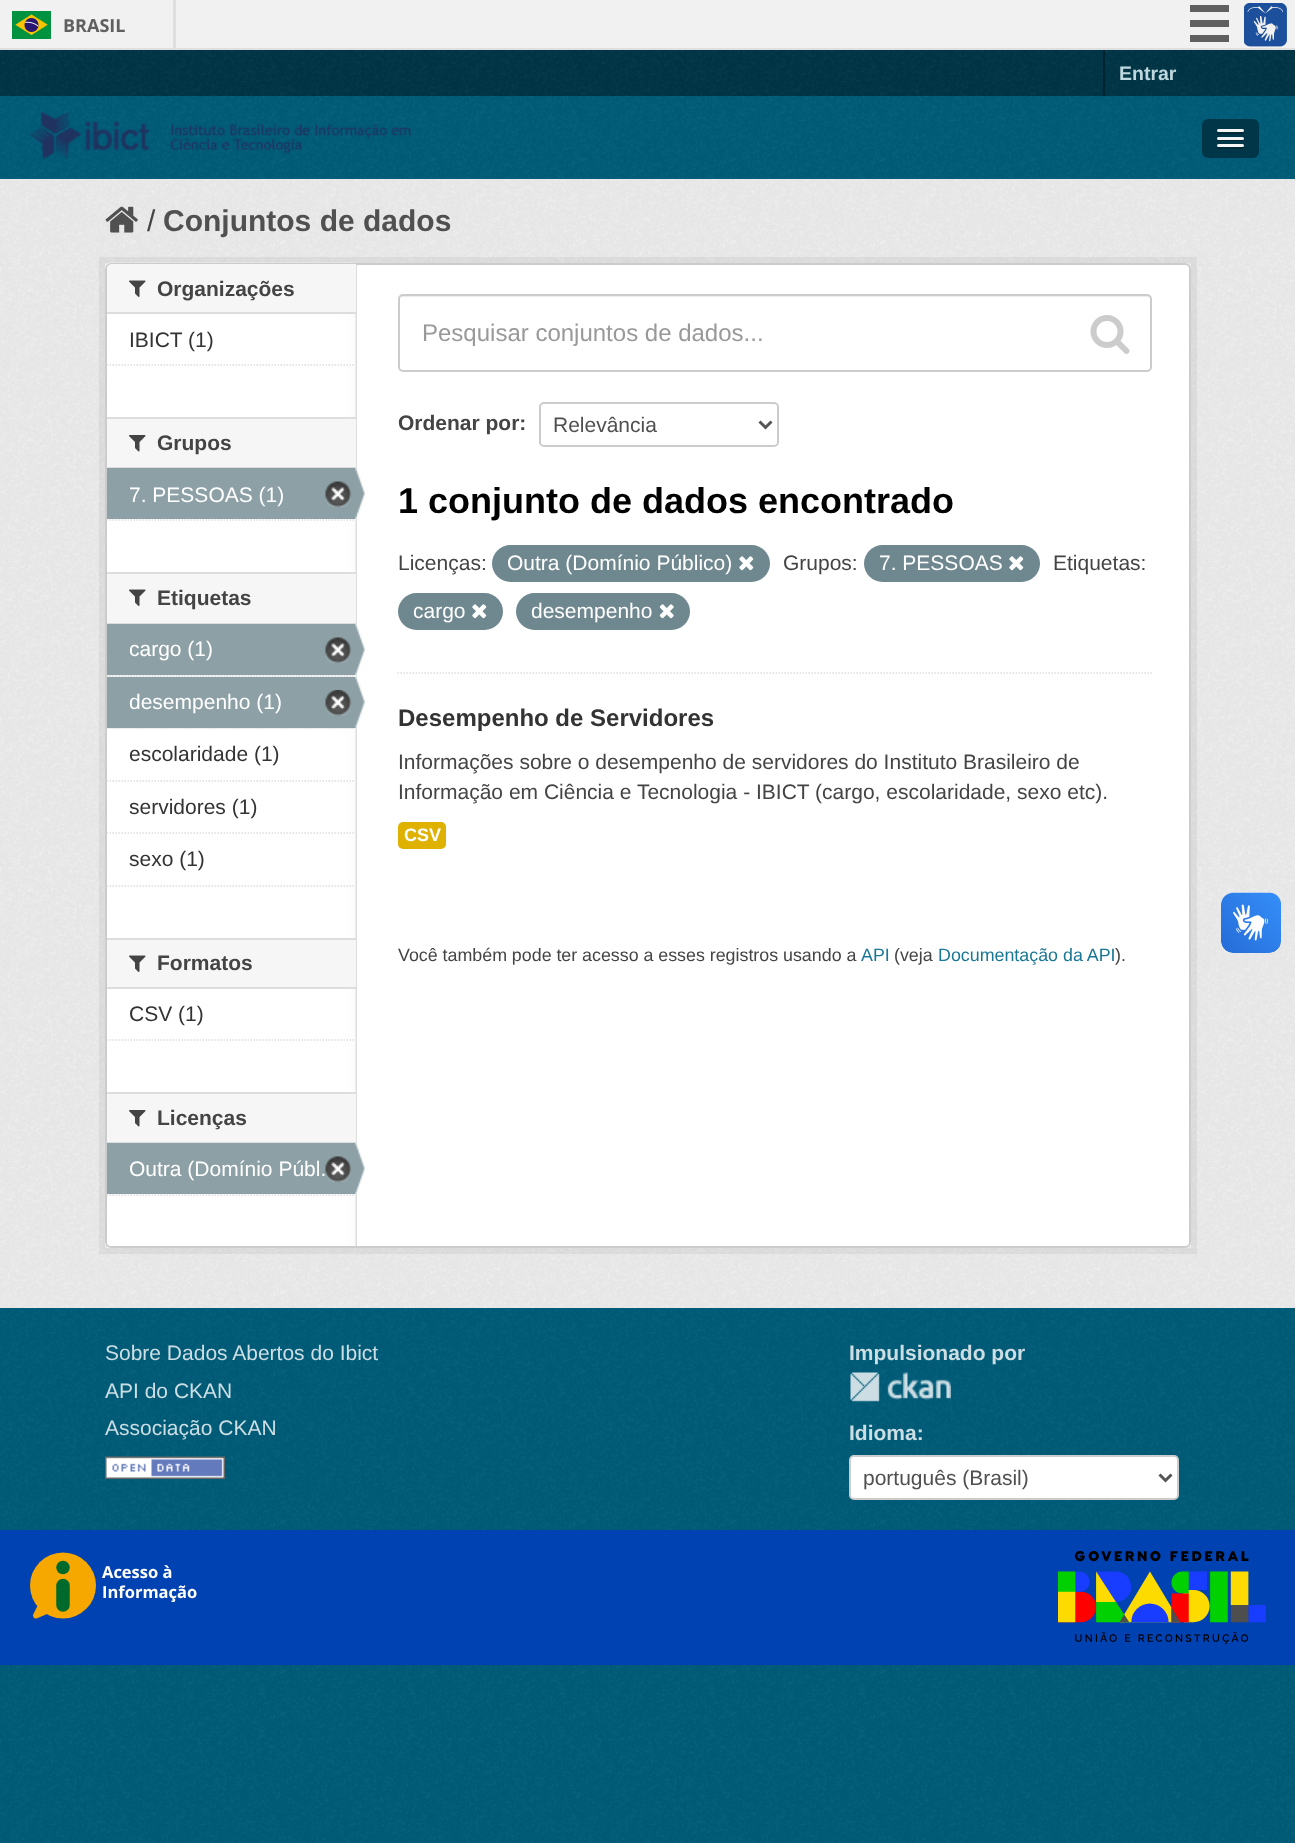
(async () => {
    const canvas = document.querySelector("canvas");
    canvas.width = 1295;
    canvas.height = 1843;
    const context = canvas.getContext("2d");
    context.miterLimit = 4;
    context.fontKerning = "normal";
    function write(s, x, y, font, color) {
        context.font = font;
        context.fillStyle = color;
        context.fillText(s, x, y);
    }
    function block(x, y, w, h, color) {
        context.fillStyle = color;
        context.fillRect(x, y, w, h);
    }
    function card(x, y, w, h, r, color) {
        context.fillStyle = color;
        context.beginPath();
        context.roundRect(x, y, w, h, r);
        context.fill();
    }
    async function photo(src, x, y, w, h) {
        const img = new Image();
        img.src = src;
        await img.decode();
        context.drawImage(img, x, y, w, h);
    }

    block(0, 0, 1295, 1843, "rgb(0, 93, 122)");
    await photo("media/1.png", 0, 1695, 1295, 148);
    block(0, 0, 1295, 48, "rgb(241, 241, 241)");
    block(0, 48, 1295, 2, "rgb(223, 223, 223)");
    block(173, 0, 3, 48, "rgb(223, 223, 223)");
    await photo("media/2.png", 12, 11, 39, 28);
    write("BRASIL", 63, 32, "bold 18px Open Sans", "rgb(96, 96, 96)");
    block(1190, 5, 39, 7, "rgb(96, 96, 96)");
    block(1190, 20, 39, 7, "rgb(96, 96, 96)");
    block(1190, 35, 39, 7, "rgb(96, 96, 96)");
    await photo("media/3.png", 1244, 3, 43, 44);
    block(0, 50, 1295, 46, "rgb(0, 54, 71)");
    await photo("media/4.png", 0, 50, 1295, 46);
    block(1103, 50, 2, 46, "rgb(0, 35, 46)");
    write("Entrar", 1119, 80, "bold 19.5px Liberation Sans", "rgb(191, 215, 222)");
    await photo("media/5.png", 0, 96, 1295, 82);
    await photo("media/6.png", 30, 112, 381, 48);
    card(1202, 119, 57, 39, 6, "rgb(0, 54, 71)");
    context.fillStyle = "rgb(0, 41, 53)";
    context.beginPath();
    context.moveTo(1217, 132);
    context.bezierCurveTo(1215.5, 135, 1222.5, 134, 1222.5, 134);
    context.lineTo(1243, 134);
    context.bezierCurveTo(1244, 133.5, 1244.5, 132, 1243.5, 131);
    context.lineTo(1242, 132);
    context.bezierCurveTo(1240, 132.5, 1218, 132.5, 1217, 132);
    context.closePath();
    context.fill();
    card(1217, 129, 27, 3, 1.5, "rgb(245, 245, 245)");
    context.fillStyle = "rgb(0, 41, 53)";
    context.beginPath();
    context.moveTo(1217, 139);
    context.bezierCurveTo(1216.5, 142, 1222, 141, 1222.5, 141);
    context.lineTo(1242.5, 141);
    context.bezierCurveTo(1244, 141, 1244.5, 139, 1243.5, 138.5);
    context.lineTo(1242.5, 139.5);
    context.bezierCurveTo(1241, 140, 1217.5, 139.5, 1217, 139);
    context.closePath();
    context.fill();
    card(1217, 137, 27, 3, 1.5, "rgb(245, 245, 245)");
    context.fillStyle = "rgb(0, 41, 53)";
    context.beginPath();
    context.moveTo(1217, 147);
    context.bezierCurveTo(1215.5, 150, 1222.5, 149, 1222.5, 149);
    context.lineTo(1243, 149);
    context.bezierCurveTo(1244, 148.5, 1244.5, 147, 1243.5, 146);
    context.lineTo(1242, 147);
    context.bezierCurveTo(1240, 147.5, 1218, 147.5, 1217, 147);
    context.closePath();
    context.fill();
    card(1217, 144, 27, 3, 1.5, "rgb(245, 245, 245)");
    block(0, 179, 1295, 1129, "rgb(238, 238, 238)");
    await photo("media/7.png", 0, 179, 1295, 1129);
    await photo("media/8.png", 105, 206, 33, 27);
    write("/", 147, 231, "30px Liberation Sans", "rgb(68, 68, 68)");
    write("Conjuntos de dados", 163, 231, "bold 30px Liberation Sans", "rgb(80, 80, 80)");
    context.strokeStyle = "rgba(0, 0, 0, 0.05)";
    context.lineWidth = 6;
    context.strokeRect(102, 260, 1092, 991);
    card(105, 263, 1086, 985, 6, "rgb(255, 255, 255)");
    await photo("media/9.png", 105, 262, 252, 986);
    context.beginPath();
    context.roundRect(106, 264, 1084, 983, 5);
    context.strokeStyle = "rgb(204, 204, 204)";
    context.lineWidth = 2;
    context.stroke();
    context.fillStyle = "rgb(246, 246, 246)";
    context.beginPath();
    context.roundRect(107, 264, 249, 50, [5, 0, 0, 0]);
    context.fill();
    block(107, 312, 249, 2, "rgb(221, 221, 221)");
    await photo("media/10.png", 129, 280, 17, 17);
    write("Organizações", 157, 296, "bold 21px Liberation Sans", "rgb(68, 68, 68)");
    write("IBICT (1)", 129, 347, "21px Liberation Sans", "rgb(51, 51, 51)");
    context.beginPath();
    context.moveTo(106.5, 365);
    context.lineTo(355.5, 365);
    context.strokeStyle = "rgb(221, 221, 221)";
    context.lineWidth = 1.5;
    context.setLineDash([1.5, 1.5]);
    context.stroke();
    block(107, 419, 249, 48, "rgb(246, 246, 246)");
    block(107, 417, 249, 2, "rgb(221, 221, 221)");
    block(107, 467, 249, 1, "rgb(221, 221, 221)");
    await photo("media/11.png", 129, 435, 17, 17);
    write("Grupos", 157, 450, "bold 21px Liberation Sans", "rgb(68, 68, 68)");
    block(107, 468, 249, 51, "rgb(140, 160, 166)");
    write("7. PESSOAS (1)", 129, 502, "21px Liberation Sans", "rgb(255, 255, 255)");
    await photo("media/12.png", 325, 481, 26, 26);
    await photo("media/13.png", 355, 468, 10, 51);
    context.beginPath();
    context.moveTo(106.5, 520);
    context.lineTo(355.5, 520);
    context.stroke();
    block(107, 574, 249, 49, "rgb(246, 246, 246)");
    block(107, 572, 249, 2, "rgb(221, 221, 221)");
    block(107, 623, 249, 1, "rgb(221, 221, 221)");
    await photo("media/10.png", 129, 589, 17, 17);
    write("Etiquetas", 157, 605, "bold 21px Liberation Sans", "rgb(68, 68, 68)");
    block(107, 675, 249, 2, "rgb(246, 246, 246)");
    context.beginPath();
    context.moveTo(106.5, 676);
    context.lineTo(355.5, 676);
    context.stroke();
    block(107, 624, 249, 51, "rgb(140, 160, 166)");
    write("cargo (1)", 129, 656, "21px Liberation Sans", "rgb(255, 255, 255)");
    await photo("media/12.png", 325, 637, 26, 26);
    await photo("media/13.png", 355, 624, 10, 51);
    block(107, 728, 249, 1, "rgb(246, 246, 246)");
    context.beginPath();
    context.moveTo(106.5, 728);
    context.lineTo(355.5, 728);
    context.stroke();
    block(107, 677, 249, 51, "rgb(140, 160, 166)");
    write("desempenho (1)", 129, 709, "21px Liberation Sans", "rgb(255, 255, 255)");
    await photo("media/14.png", 325, 690, 26, 26);
    await photo("media/15.png", 355, 676, 10, 52);
    context.beginPath();
    context.moveTo(106.5, 781);
    context.lineTo(355.5, 781);
    context.stroke();
    write("escolaridade (1)", 129, 761, "21px Liberation Sans", "rgb(51, 51, 51)");
    context.beginPath();
    context.moveTo(106.5, 833);
    context.lineTo(355.5, 833);
    context.stroke();
    write("servidores (1)", 129, 814, "21px Liberation Sans", "rgb(51, 51, 51)");
    write("sexo (1)", 129, 866, "21px Liberation Sans", "rgb(51, 51, 51)");
    context.beginPath();
    context.moveTo(106.5, 886);
    context.lineTo(355.5, 886);
    context.stroke();
    block(107, 940, 249, 47, "rgb(246, 246, 246)");
    block(107, 938, 249, 2, "rgb(221, 221, 221)");
    block(107, 987, 249, 2, "rgb(221, 221, 221)");
    await photo("media/10.png", 129, 955, 17, 17);
    write("Formatos", 157, 970, "bold 21px Liberation Sans", "rgb(68, 68, 68)");
    write("CSV (1)", 129, 1021, "21px Liberation Sans", "rgb(51, 51, 51)");
    context.beginPath();
    context.moveTo(106.5, 1040);
    context.lineTo(355.5, 1040);
    context.stroke();
    block(107, 1094, 249, 48, "rgb(246, 246, 246)");
    block(107, 1092, 249, 2, "rgb(221, 221, 221)");
    block(107, 1142, 249, 1, "rgb(221, 221, 221)");
    await photo("media/11.png", 129, 1110, 17, 17);
    write("Licenças", 157, 1125, "bold 21px Liberation Sans", "rgb(68, 68, 68)");
    block(107, 1143, 249, 51, "rgb(140, 160, 166)");
    write("Outra (Domínio Públ.", 129, 1176, "21px Liberation Sans", "rgb(255, 255, 255)");
    await photo("media/16.png", 325, 1156, 26, 26);
    await photo("media/13.png", 355, 1143, 10, 51);
    context.beginPath();
    context.moveTo(106.5, 1195);
    context.lineTo(355.5, 1195);
    context.stroke();
    context.beginPath();
    context.moveTo(397.5, 673);
    context.lineTo(1152, 673);
    context.stroke();
    context.fillStyle = "rgb(236, 236, 236)";
    context.beginPath();
    context.moveTo(402, 297);
    context.lineTo(1148, 297);
    context.bezierCurveTo(1149, 297, 1150, 298, 1150, 300);
    context.lineTo(1150, 370);
    context.lineTo(1151, 368);
    context.lineTo(1151, 298);
    context.bezierCurveTo(1150, 297, 1149, 296, 1148, 296);
    context.lineTo(402, 296);
    context.bezierCurveTo(400, 296, 399, 298, 399, 300);
    context.bezierCurveTo(399, 298, 400, 297, 402, 297);
    context.closePath();
    context.fill();
    context.beginPath();
    context.roundRect(399, 295, 752, 76, 4);
    context.strokeStyle = "rgb(204, 204, 204)";
    context.lineWidth = 2;
    context.setLineDash([]);
    context.stroke();
    write("Pesquisar conjuntos de dados...", 422, 341, "24px Liberation Sans", "rgb(153, 153, 153)");
    await photo("media/17.png", 1090, 315, 40, 39);
    write("Ordenar por:", 398, 430, "bold 21px Liberation Sans", "rgb(68, 68, 68)");
    context.beginPath();
    context.roundRect(540, 403, 238, 43, 4);
    context.stroke();
    context.beginPath();
    context.moveTo(759.5, 421.5);
    context.lineTo(765.5, 427.5);
    context.lineTo(771.5, 421.5);
    context.strokeStyle = "rgb(85, 85, 85)";
    context.lineWidth = 3;
    context.stroke();
    write("Relevância", 553, 432, "21px Liberation Sans", "rgb(80, 80, 80)");
    write("1 conjunto de dados encontrado", 398, 513, "bold 36px Liberation Sans", "rgb(0, 0, 0)");
    write("Licenças:", 398, 570, "21px Liberation Sans", "rgb(68, 68, 68)");
    card(492, 545, 278, 37, 18.5, "rgb(111, 136, 144)");
    write("Outra (Domínio Público)", 507, 570, "21px Liberation Sans", "rgb(255, 255, 255)");
    await photo("media/18.png", 739, 556, 15, 15);
    write("Grupos:", 783, 570, "21px Liberation Sans", "rgb(68, 68, 68)");
    card(864, 545, 176, 37, 18.5, "rgb(111, 136, 144)");
    write("7. PESSOAS", 879, 570, "21px Liberation Sans", "rgb(255, 255, 255)");
    await photo("media/18.png", 1009, 556, 15, 15);
    write("Etiquetas:", 1053, 570, "21px Liberation Sans", "rgb(68, 68, 68)");
    card(398, 593, 105, 37, 18.5, "rgb(111, 136, 144)");
    write("cargo", 413, 618, "21px Liberation Sans", "rgb(255, 255, 255)");
    await photo("media/18.png", 472, 604, 15, 15);
    card(516, 593, 174, 37, 18.5, "rgb(111, 136, 144)");
    write("desempenho", 531, 618, "21px Liberation Sans", "rgb(255, 255, 255)");
    await photo("media/19.png", 659, 604, 15, 15);
    write("Desempenho de Servidores", 398, 726, "bold 24px Liberation Sans", "rgb(51, 51, 51)");
    write("Informações sobre o desempenho de servidores do Instituto Brasileiro de", 398, 769, "21px Liberation Sans", "rgb(68, 68, 68)");
    write("Informação em Ciência e Tecnologia - IBICT (cargo, escolaridade, sexo etc).", 398, 799, "21px Liberation Sans", "rgb(68, 68, 68)");
    card(398, 822, 48, 27, 5, "rgb(223, 177, 0)");
    write("CSV", 404, 841, "bold 18px Liberation Sans", "rgb(255, 255, 255)");
    context.wordSpacing = "-0.1px";
    write("Você também pode ter acesso a esses registros usando a", 398, 961, "17.85px Liberation Sans", "rgb(68, 68, 68)");
    context.wordSpacing = "0px";
    write("API", 861, 961, "17.85px Liberation Sans", "rgb(24, 119, 148)");
    write("(veja", 894, 961, "17.85px Liberation Sans", "rgb(68, 68, 68)");
    write("Documentação da API", 938, 961, "17.85px Liberation Sans", "rgb(24, 119, 148)");
    write(").", 1115, 961, "17.85px Liberation Sans", "rgb(68, 68, 68)");
    await photo("media/20.png", 1221, 892, 60, 61);
    await photo("media/21.png", 1221, 893, 60, 60);
    await photo("media/22.png", 0, 1308, 1295, 387);
    write("Sobre Dados Abertos do Ibict", 105, 1360, "21px Liberation Sans", "rgb(204, 222, 227)");
    write("API do CKAN", 105, 1398, "21px Liberation Sans", "rgb(204, 222, 227)");
    write("Associação CKAN", 105, 1435, "21px Liberation Sans", "rgb(204, 222, 227)");
    await photo("media/23.png", 105, 1456, 120, 23);
    write("Impulsionado por", 849, 1360, "bold 21px Liberation Sans", "rgb(204, 222, 227)");
    await photo("media/24.png", 850, 1372, 101, 30);
    write("Idioma:", 849, 1440, "bold 21px Liberation Sans", "rgb(204, 222, 227)");
    context.fillStyle = "rgb(255, 255, 255)";
    context.beginPath();
    context.roundRect(850, 1456, 328, 43, 4);
    context.fill();
    context.strokeStyle = "rgb(204, 204, 204)";
    context.lineWidth = 2;
    context.stroke();
    context.beginPath();
    context.moveTo(1159.5, 1474.5);
    context.lineTo(1165.5, 1480.5);
    context.lineTo(1171.5, 1474.5);
    context.strokeStyle = "rgb(85, 85, 85)";
    context.lineWidth = 3;
    context.stroke();
    write("português (Brasil)", 863, 1485, "21px Liberation Sans", "rgb(80, 80, 80)");
    block(0, 1530, 1295, 135, "rgb(0, 66, 177)");
    await photo("media/25.png", 30, 1552, 167, 67);
    await photo("media/26.png", 1058, 1551, 208, 93);
})();
